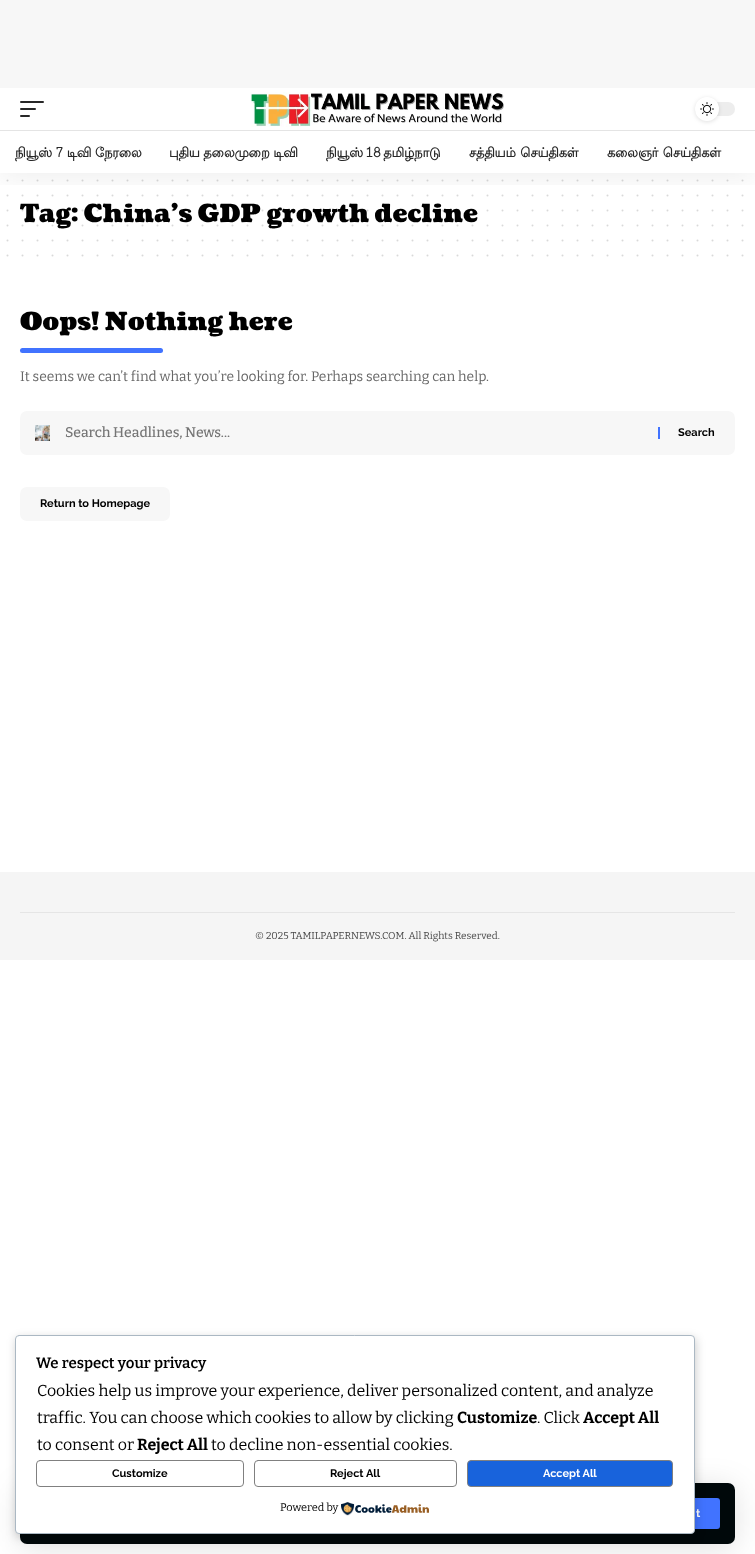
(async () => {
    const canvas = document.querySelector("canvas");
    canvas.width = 755;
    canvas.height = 1554;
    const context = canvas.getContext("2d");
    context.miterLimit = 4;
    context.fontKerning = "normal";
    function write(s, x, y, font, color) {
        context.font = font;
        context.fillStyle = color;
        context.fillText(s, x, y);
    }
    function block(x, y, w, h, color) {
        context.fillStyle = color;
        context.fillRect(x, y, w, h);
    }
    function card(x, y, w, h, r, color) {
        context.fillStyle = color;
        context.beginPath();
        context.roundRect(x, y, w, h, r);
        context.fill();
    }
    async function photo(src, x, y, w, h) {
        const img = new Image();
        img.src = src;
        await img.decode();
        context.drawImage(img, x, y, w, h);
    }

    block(0, 0, 755, 1554, "rgb(255, 255, 255)");
    block(0, 0, 755, 88, "rgb(247, 247, 247)");
    context.beginPath();
    context.moveTo(7.5, 180.5);
    context.lineTo(742.7, 180.5);
    context.strokeStyle = "rgb(217, 217, 217)";
    context.lineWidth = 2;
    context.lineCap = "round";
    context.setLineDash([0, 15]);
    context.stroke();
    context.beginPath();
    context.moveTo(7.5, 195.5);
    context.lineTo(742.7, 195.5);
    context.stroke();
    write("Tag: China’s GDP growth decline", 20, 222, "900 25px Coustard", "rgb(0, 0, 0)");
    context.beginPath();
    context.moveTo(7.5, 210.5);
    context.lineTo(742.7, 210.5);
    context.strokeStyle = "rgba(0, 0, 0, 0.15)";
    context.stroke();
    context.save();
    context.beginPath();
    context.rect(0, 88, 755, 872);
    context.clip();
    context.beginPath();
    context.rect(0, 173, 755, 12);
    context.clip();
    context.fillStyle = "rgba(0, 0, 0, 0.07)";
    context.filter = "blur(15px)";
    context.beginPath();
    context.rect(0, 92, 755, 85);
    context.fill();
    context.filter = "none";
    context.restore();
    card(20, 101, 24, 2, 1, "rgb(40, 40, 40)");
    card(20, 108, 16, 2, 1, "rgb(40, 40, 40)");
    card(20, 115, 10, 2, 1, "rgb(40, 40, 40)");
    await photo("media/1.png", 250, 92, 254, 35);
    card(695, 102, 40, 14, 7, "rgb(237, 237, 237)");
    context.fillStyle = "rgba(0, 0, 0, 0.12)";
    context.filter = "blur(2px)";
    context.beginPath();
    context.roundRect(695, 98, 24, 24, 12);
    context.fill();
    context.filter = "none";
    context.fillStyle = "rgb(255, 255, 255)";
    context.beginPath();
    context.arc(707, 109, 12, 0, Math.PI * 2);
    context.fill();
    await photo("media/2.png", 700, 102, 14, 14);
    block(0, 130, 755, 1, "rgb(228, 228, 228)");
    context.letterSpacing = "-0.25px";
    write("நியூஸ் 7 டிவி நேரலை", 15, 157, "bold 13px Lohit Tamil", "rgb(40, 40, 40)");
    write("புதிய தலைமுறை டிவி", 169, 157, "bold 13px Lohit Tamil", "rgb(40, 40, 40)");
    context.wordSpacing = "-1px";
    write("நியூஸ் 18 தமிழ்நாடு", 326, 157, "bold 13px Lohit Tamil", "rgb(40, 40, 40)");
    context.wordSpacing = "1px";
    write("சத்தியம் செய்திகள்", 469, 157, "bold 13px Lohit Tamil", "rgb(40, 40, 40)");
    write("கலைஞர் செய்திகள்", 607, 157, "bold 13px Lohit Tamil", "rgb(40, 40, 40)");
    context.fillStyle = "rgba(0, 0, 0, 0.12)";
    context.filter = "blur(15px)";
    context.beginPath();
    context.roundRect(20, 1487, 715, 61, 7);
    context.fill();
    context.filter = "none";
    card(20, 1483, 715, 61, 7, "rgb(0, 8, 10)");
    card(643, 1498, 77, 31, 3, "rgb(65, 115, 255)");
    context.letterSpacing = "0px";
    context.wordSpacing = "0px";
    write("t", 696, 1517, "bold 11px Raleway", "rgb(255, 255, 255)");
    context.beginPath();
    context.moveTo(7.5, 225.5);
    context.lineTo(742.7, 225.5);
    context.stroke();
    context.beginPath();
    context.moveTo(7.5, 240.5);
    context.lineTo(742.7, 240.5);
    context.strokeStyle = "rgb(217, 217, 217)";
    context.stroke();
    context.beginPath();
    context.moveTo(7.5, 255.5);
    context.lineTo(742.7, 255.5);
    context.stroke();
    write("Oops! Nothing here", 20, 330, "900 25px Coustard", "rgb(0, 0, 0)");
    card(20, 348, 143, 5, 2.5, "rgb(65, 115, 255)");
    write("It seems we can’t find what you’re looking for. Perhaps searching can help.", 20, 381, "13.8px Bitter", "rgb(102, 102, 102)");
    card(20, 411, 715, 44, 7, "rgb(247, 247, 247)");
    await photo("media/3.png", 35, 425, 15, 16);
    write("Search Headlines, News...", 65, 437, "500 14px Bitter", "rgb(117, 117, 117)");
    block(658, 427, 2, 12, "rgb(65, 115, 255)");
    write("Search", 678, 436, "bold 11px Raleway", "rgb(0, 0, 0)");
    card(20, 487, 150, 34, 7, "rgb(247, 247, 247)");
    write("Return to Homepage", 40, 507, "bold 11px Raleway", "rgb(0, 0, 0)");
    block(0, 872, 755, 88, "rgb(245, 245, 245)");
    block(20, 912, 715, 1, "rgb(229, 229, 229)");
    write("© 2025 TAMILPAPERNEWS.COM. All Rights Reserved.", 255, 939, "10px Bitter", "rgb(74, 74, 74)");
    context.fillStyle = "rgba(0, 0, 0, 0.2)";
    context.filter = "blur(5px)";
    context.beginPath();
    context.roundRect(16, 1338, 680, 199, 4);
    context.fill();
    context.filter = "none";
    context.fillStyle = "rgb(255, 255, 255)";
    context.beginPath();
    context.roundRect(15.5, 1335.5, 679, 198, 3.5);
    context.fill();
    context.strokeStyle = "rgb(171, 184, 195)";
    context.lineWidth = 1;
    context.setLineDash([]);
    context.stroke();
    context.wordSpacing = "0.5px";
    write("We respect your privacy", 36, 1368, "600 15px Bitter", "rgb(0, 0, 0)");
    context.wordSpacing = "0px";
    write("Cookies help us improve your experience, deliver personalized content, and analyze", 37, 1396, "16px Bitter", "rgb(0, 0, 0)");
    write("traffic. You can choose which cookies to allow by clicking", 37, 1423, "16px Bitter", "rgb(0, 0, 0)");
    write("Customize", 457, 1423, "bold 16px Bitter", "rgb(0, 0, 0)");
    write(". Click", 537, 1423, "16px Bitter", "rgb(0, 0, 0)");
    write("Accept All", 583, 1423, "bold 16px Bitter", "rgb(0, 0, 0)");
    write("to consent or", 37, 1450, "16px Bitter", "rgb(0, 0, 0)");
    write("Reject All", 137, 1450, "bold 16px Bitter", "rgb(0, 0, 0)");
    write("to decline non-essential cookies.", 211, 1450, "16px Bitter", "rgb(0, 0, 0)");
    context.beginPath();
    context.roundRect(36.5, 1460.5, 207, 26, 3.5);
    context.strokeStyle = "rgb(128, 128, 128)";
    context.stroke();
    write("Customize", 112, 1477, "bold 11px Raleway", "rgb(0, 0, 0)");
    context.beginPath();
    context.roundRect(254.5, 1460.5, 202, 26, 3.5);
    context.stroke();
    write("Reject All", 330, 1477, "bold 11px Raleway", "rgb(0, 0, 0)");
    context.fillStyle = "rgb(24, 99, 220)";
    context.beginPath();
    context.roundRect(467.5, 1460.5, 205, 26, 3.5);
    context.fill();
    context.stroke();
    write("Accept All", 543, 1477, "bold 11px Raleway", "rgb(255, 255, 255)");
    write("Powered by", 280, 1511, "11px Bitter", "rgb(0, 0, 0)");
    await photo("media/4.png", 341, 1502, 88, 14);
})();
